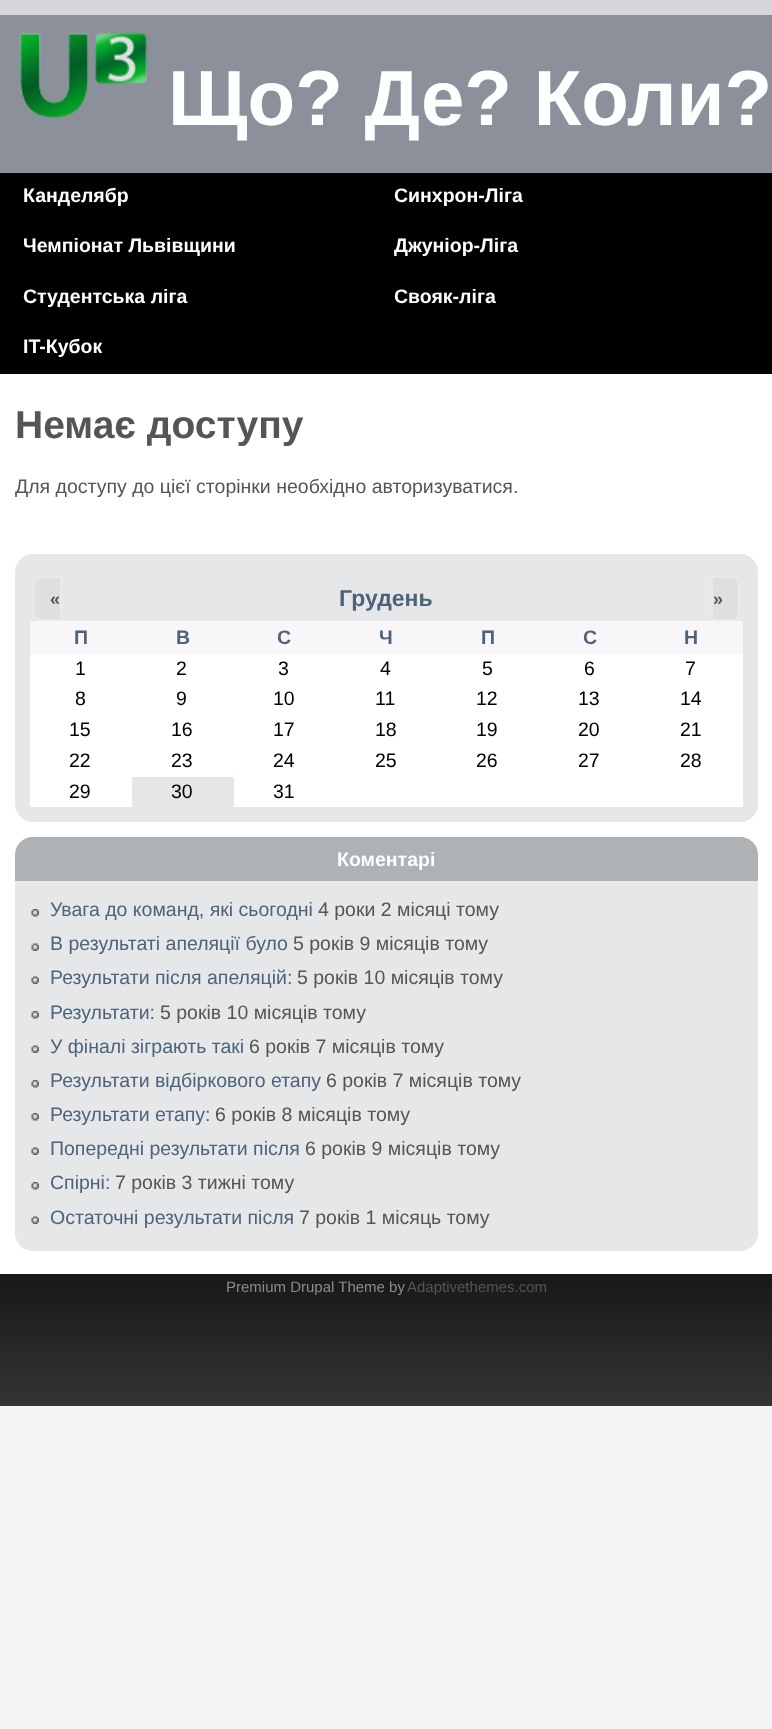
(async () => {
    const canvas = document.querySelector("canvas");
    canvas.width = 772;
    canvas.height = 1729;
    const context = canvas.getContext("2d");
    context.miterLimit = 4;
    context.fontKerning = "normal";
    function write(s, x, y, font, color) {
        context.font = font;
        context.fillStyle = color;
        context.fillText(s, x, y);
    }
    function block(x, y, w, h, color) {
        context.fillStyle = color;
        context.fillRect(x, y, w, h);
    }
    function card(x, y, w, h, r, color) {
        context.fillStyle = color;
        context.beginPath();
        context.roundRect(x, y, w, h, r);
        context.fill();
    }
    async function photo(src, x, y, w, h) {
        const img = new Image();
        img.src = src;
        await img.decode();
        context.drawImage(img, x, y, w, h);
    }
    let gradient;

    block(0, 0, 772, 1729, "rgb(244, 245, 246)");
    await photo("media/1.png", 0, 0, 772, 15);
    block(0, 374, 772, 900, "rgb(255, 255, 255)");
    block(0, 15, 772, 158, "rgb(140, 144, 155)");
    await photo("media/2.png", 19, 32, 129, 87);
    write("Що? Де? Коли?", 168, 125, "bold 78px Liberation Sans", "rgb(254, 255, 255)");
    block(0, 173, 772, 201, "rgb(0, 0, 0)");
    write("Канделябр", 23, 202, "bold 19.5px Liberation Sans", "rgb(254, 255, 255)");
    write("Синхрон-Ліга", 394, 202, "bold 19.5px Liberation Sans", "rgb(254, 255, 255)");
    write("Чемпіонат Львівщини", 23, 252, "bold 19.5px Liberation Sans", "rgb(254, 255, 255)");
    write("Джуніор-Ліга", 394, 252, "bold 19.5px Liberation Sans", "rgb(254, 255, 255)");
    write("Cтудентська ліга", 23, 303, "bold 19.5px Liberation Sans", "rgb(254, 255, 255)");
    write("Свояк-ліга", 394, 303, "bold 19.5px Liberation Sans", "rgb(254, 255, 255)");
    write("IT-Кубок", 23, 353, "bold 19.5px Liberation Sans", "rgb(254, 255, 255)");
    write("Немає доступу", 15, 438, "bold 39px Liberation Sans", "rgb(85, 85, 85)");
    write("Для доступу до цієї сторінки необхідно авторизуватися.", 15, 493, "19.5px Liberation Sans", "rgb(85, 85, 85)");
    card(15, 554, 743, 268, 18, "rgb(230, 231, 232)");
    write("Грудень", 339, 606, "bold 23px Liberation Sans", "rgb(77, 99, 122)");
    context.fillStyle = "rgb(223, 223, 223)";
    context.beginPath();
    context.roundRect(34, 577, 27, 43, [7, 0, 0, 7]);
    context.fill();
    context.strokeStyle = "rgb(233, 233, 233)";
    context.lineWidth = 2;
    context.stroke();
    write("«", 50, 605, "bold 18px Liberation Sans", "rgb(85, 85, 85)");
    context.fillStyle = "rgb(223, 223, 223)";
    context.beginPath();
    context.roundRect(712, 577, 27, 43, [0, 7, 7, 0]);
    context.fill();
    context.stroke();
    write("»", 713, 605, "bold 18px Liberation Sans", "rgb(85, 85, 85)");
    block(30, 621, 713, 33, "rgb(249, 246, 249)");
    write("П", 74, 644, "bold 19.5px Liberation Sans", "rgb(77, 99, 122)");
    write("В", 176, 644, "bold 19.5px Liberation Sans", "rgb(77, 99, 122)");
    write("С", 277, 644, "bold 19.5px Liberation Sans", "rgb(77, 99, 122)");
    write("Ч", 379, 644, "bold 19.5px Liberation Sans", "rgb(77, 99, 122)");
    write("П", 481, 644, "bold 19.5px Liberation Sans", "rgb(77, 99, 122)");
    write("С", 583, 644, "bold 19.5px Liberation Sans", "rgb(77, 99, 122)");
    write("Н", 684, 644, "bold 19.5px Liberation Sans", "rgb(77, 99, 122)");
    block(30, 654, 713, 153, "rgb(255, 255, 255)");
    write("1", 75, 675, "19.5px Liberation Sans", "rgb(0, 0, 0)");
    write("2", 176, 675, "19.5px Liberation Sans", "rgb(0, 0, 0)");
    write("3", 278, 675, "19.5px Liberation Sans", "rgb(0, 0, 0)");
    write("4", 380, 675, "19.5px Liberation Sans", "rgb(0, 0, 0)");
    write("5", 482, 675, "19.5px Liberation Sans", "rgb(0, 0, 0)");
    write("6", 584, 675, "19.5px Liberation Sans", "rgb(0, 0, 0)");
    write("7", 685, 675, "19.5px Liberation Sans", "rgb(0, 0, 0)");
    write("8", 75, 705, "19.5px Liberation Sans", "rgb(0, 0, 0)");
    write("9", 176, 705, "19.5px Liberation Sans", "rgb(0, 0, 0)");
    write("10", 273, 705, "19.5px Liberation Sans", "rgb(0, 0, 0)");
    write("11", 375, 705, "19.5px Liberation Sans", "rgb(0, 0, 0)");
    write("12", 476, 705, "19.5px Liberation Sans", "rgb(0, 0, 0)");
    write("13", 578, 705, "19.5px Liberation Sans", "rgb(0, 0, 0)");
    write("14", 680, 705, "19.5px Liberation Sans", "rgb(0, 0, 0)");
    write("15", 69, 736, "19.5px Liberation Sans", "rgb(0, 0, 0)");
    write("16", 171, 736, "19.5px Liberation Sans", "rgb(0, 0, 0)");
    write("17", 273, 736, "19.5px Liberation Sans", "rgb(0, 0, 0)");
    write("18", 375, 736, "19.5px Liberation Sans", "rgb(0, 0, 0)");
    write("19", 476, 736, "19.5px Liberation Sans", "rgb(0, 0, 0)");
    write("20", 578, 736, "19.5px Liberation Sans", "rgb(0, 0, 0)");
    write("21", 680, 736, "19.5px Liberation Sans", "rgb(0, 0, 0)");
    write("22", 69, 767, "19.5px Liberation Sans", "rgb(0, 0, 0)");
    write("23", 171, 767, "19.5px Liberation Sans", "rgb(0, 0, 0)");
    write("24", 273, 767, "19.5px Liberation Sans", "rgb(0, 0, 0)");
    write("25", 375, 767, "19.5px Liberation Sans", "rgb(0, 0, 0)");
    write("26", 476, 767, "19.5px Liberation Sans", "rgb(0, 0, 0)");
    write("27", 578, 767, "19.5px Liberation Sans", "rgb(0, 0, 0)");
    write("28", 680, 767, "19.5px Liberation Sans", "rgb(0, 0, 0)");
    write("29", 69, 798, "19.5px Liberation Sans", "rgb(0, 0, 0)");
    block(132, 777, 102, 30, "rgb(229, 230, 231)");
    write("30", 171, 798, "19.5px Liberation Sans", "rgb(0, 0, 0)");
    write("31", 273, 798, "19.5px Liberation Sans", "rgb(0, 0, 0)");
    card(15, 837, 743, 414, 18, "rgb(230, 231, 232)");
    context.fillStyle = "rgb(174, 178, 181)";
    context.beginPath();
    context.roundRect(15, 837, 743, 44, [18, 18, 0, 0]);
    context.fill();
    write("Коментарі", 337, 866, "bold 19.5px Liberation Sans", "rgb(254, 255, 255)");
    await photo("media/3.png", 31, 909, 8, 8);
    write("Увага до команд, які сьогодні", 50, 916, "19.5px Liberation Sans", "rgb(77, 99, 122)");
    write("4 роки 2 місяці тому", 318, 916, "19.5px Liberation Sans", "rgb(85, 85, 85)");
    await photo("media/4.png", 31, 943, 8, 8);
    write("В результаті апеляції було", 50, 950, "19.5px Liberation Sans", "rgb(77, 99, 122)");
    write("5 років 9 місяців тому", 293, 950, "19.5px Liberation Sans", "rgb(85, 85, 85)");
    await photo("media/4.png", 31, 976, 8, 8);
    write("Результати після апеляцій:", 50, 984, "19.5px Liberation Sans", "rgb(77, 99, 122)");
    write("5 років 10 місяців тому", 297, 984, "19.5px Liberation Sans", "rgb(85, 85, 85)");
    await photo("media/3.png", 31, 1011, 8, 8);
    write("Результати:", 50, 1019, "19.5px Liberation Sans", "rgb(77, 99, 122)");
    write("5 років 10 місяців тому", 160, 1019, "19.5px Liberation Sans", "rgb(85, 85, 85)");
    await photo("media/4.png", 31, 1045, 8, 8);
    write("У фіналі зіграють такі", 50, 1053, "19.5px Liberation Sans", "rgb(77, 99, 122)");
    write("6 років 7 місяців тому", 249, 1053, "19.5px Liberation Sans", "rgb(85, 85, 85)");
    await photo("media/3.png", 31, 1080, 8, 8);
    write("Результати відбіркового етапу", 50, 1087, "19.5px Liberation Sans", "rgb(77, 99, 122)");
    write("6 років 7 місяців тому", 326, 1087, "19.5px Liberation Sans", "rgb(85, 85, 85)");
    await photo("media/3.png", 31, 1113, 8, 8);
    write("Результати етапу:", 50, 1121, "19.5px Liberation Sans", "rgb(77, 99, 122)");
    write("6 років 8 місяців тому", 215, 1121, "19.5px Liberation Sans", "rgb(85, 85, 85)");
    await photo("media/4.png", 31, 1147, 8, 8);
    write("Попередні результати після", 50, 1155, "19.5px Liberation Sans", "rgb(77, 99, 122)");
    write("6 років 9 місяців тому", 305, 1155, "19.5px Liberation Sans", "rgb(85, 85, 85)");
    await photo("media/3.png", 31, 1182, 8, 8);
    write("Спірні:", 50, 1189, "19.5px Liberation Sans", "rgb(77, 99, 122)");
    write("7 років 3 тижні тому", 115, 1189, "19.5px Liberation Sans", "rgb(85, 85, 85)");
    await photo("media/4.png", 31, 1216, 8, 8);
    write("Остаточні результати після", 50, 1224, "19.5px Liberation Sans", "rgb(77, 99, 122)");
    write("7 років 1 місяць тому", 299, 1224, "19.5px Liberation Sans", "rgb(85, 85, 85)");
    gradient = context.createLinearGradient(386, 1274, 386, 1406);
    gradient.addColorStop(0, "rgb(24, 24, 24)");
    gradient.addColorStop(1, "rgb(52, 52, 52)");
    context.fillStyle = gradient;
    context.fillRect(0, 1274, 772, 132);
    write("Premium Drupal Theme by", 226, 1292, "15px Liberation Sans", "rgb(140, 138, 140)");
    write("Adaptivethemes.com", 407, 1292, "15px Liberation Sans", "rgb(85, 85, 85)");
})();
